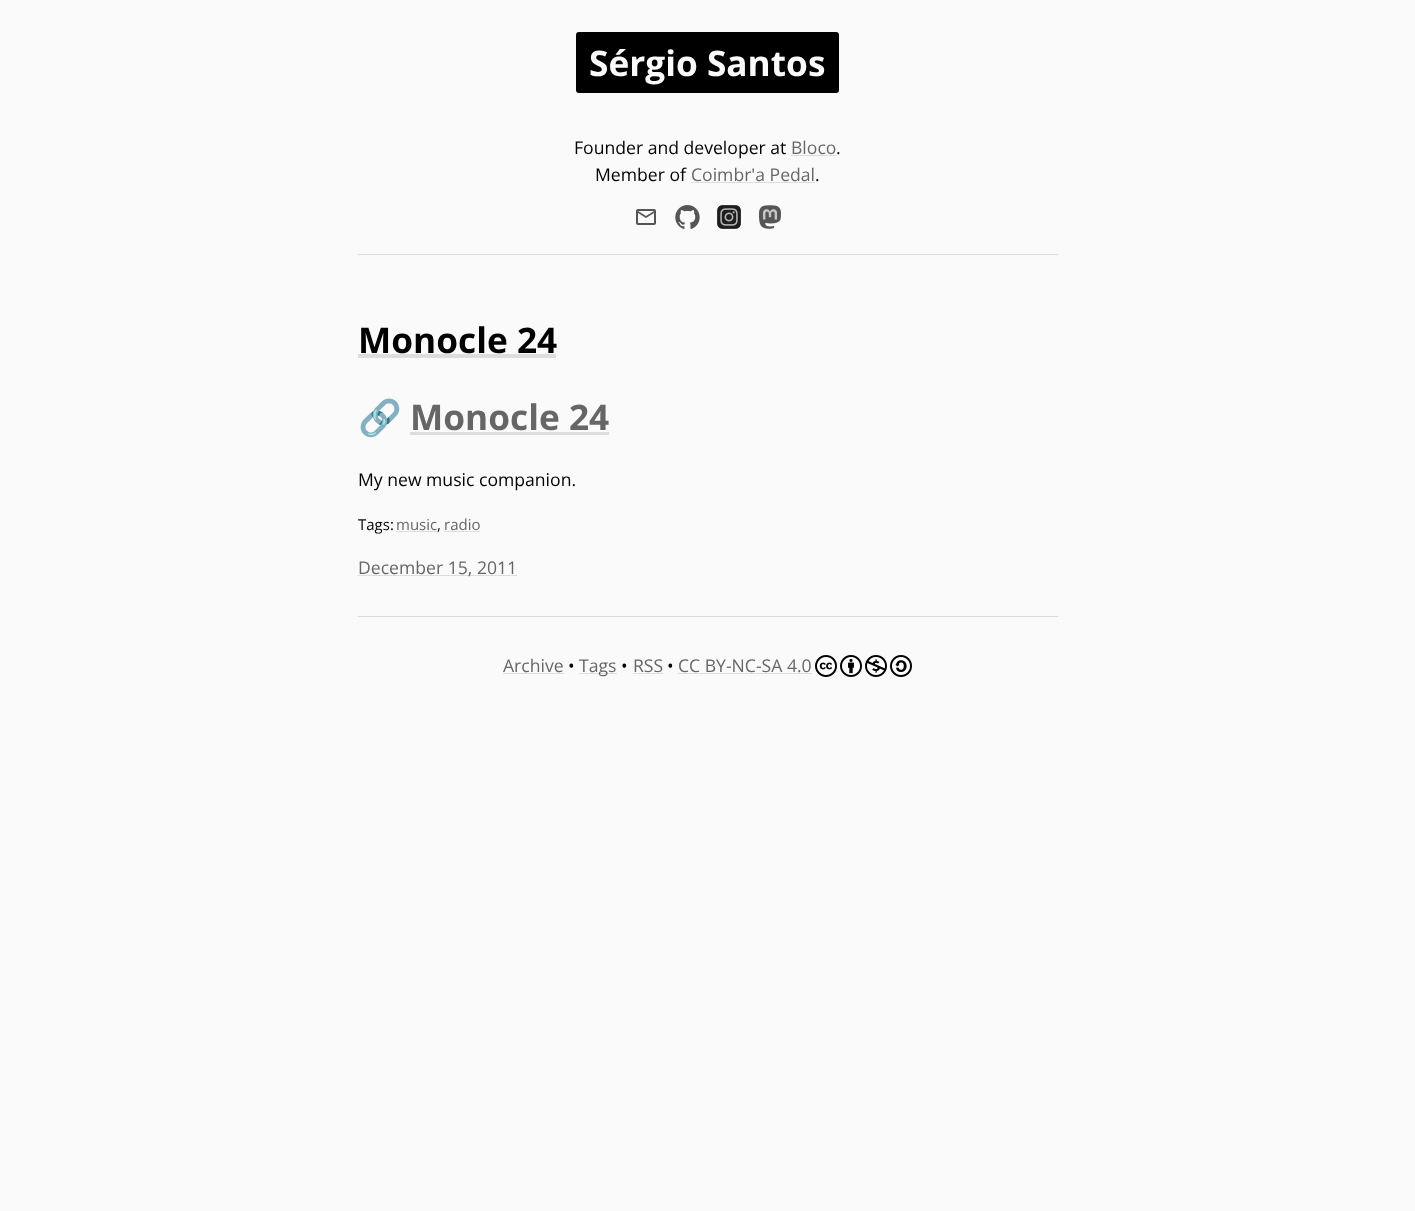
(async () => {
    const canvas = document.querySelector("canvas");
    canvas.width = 1415;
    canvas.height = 1211;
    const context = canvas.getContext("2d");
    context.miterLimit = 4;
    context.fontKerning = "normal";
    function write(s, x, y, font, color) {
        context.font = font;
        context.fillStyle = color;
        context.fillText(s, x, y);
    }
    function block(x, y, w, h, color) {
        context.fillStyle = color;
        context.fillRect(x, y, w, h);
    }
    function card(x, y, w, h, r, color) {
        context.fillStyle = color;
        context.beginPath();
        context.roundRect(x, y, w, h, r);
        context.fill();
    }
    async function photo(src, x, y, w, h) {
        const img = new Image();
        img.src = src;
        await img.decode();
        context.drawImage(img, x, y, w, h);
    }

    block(0, 0, 1415, 1211, "rgb(250, 250, 250)");
    block(358, 254, 700, 1, "rgb(221, 221, 221)");
    card(576, 32, 263, 61, 3, "rgb(0, 0, 0)");
    write("Sérgio Santos", 589, 76, "bold 35.25px Open Sans", "rgb(250, 250, 250)");
    write("Founder and developer at", 574, 154, "17.6px Open Sans", "rgb(0, 0, 0)");
    write("Bloco", 791, 154, "17.6px Open Sans", "rgb(102, 102, 102)");
    block(791, 155, 45, 1, "rgb(221, 221, 221)");
    write(".", 836, 154, "17.6px Open Sans", "rgb(0, 0, 0)");
    write("Member of", 595, 181, "17.6px Open Sans", "rgb(0, 0, 0)");
    write("Coimbr'a Pedal", 691, 181, "17.6px Open Sans", "rgb(102, 102, 102)");
    block(691, 182, 124, 1, "rgb(221, 221, 221)");
    write(".", 815, 181, "17.6px Open Sans", "rgb(0, 0, 0)");
    await photo("media/1.png", 636, 209, 20, 16);
    await photo("media/2.png", 675, 205, 25, 24);
    await photo("media/3.png", 717, 205, 24, 24);
    await photo("media/4.png", 759, 205, 22, 24);
    block(358, 616, 700, 1, "rgb(221, 221, 221)");
    write("Monocle 24", 358, 353, "bold 35.25px Open Sans", "rgb(0, 0, 0)");
    block(358, 354, 198, 4, "rgb(221, 221, 221)");
    write("🔗", 358, 430, "bold 35.25px Noto Color Emoji", "rgb(0, 0, 0)");
    write("Monocle 24", 410, 430, "bold 35.25px Open Sans", "rgb(102, 102, 102)");
    block(410, 432, 199, 3, "rgb(221, 221, 221)");
    write("My new music companion.", 358, 486, "17.6px Open Sans", "rgb(0, 0, 0)");
    write("Tags:", 358, 530, "15px Open Sans", "rgb(0, 0, 0)");
    write("music", 396, 530, "15px Open Sans", "rgb(102, 102, 102)");
    write(",", 437, 530, "15px Open Sans", "rgb(0, 0, 0)");
    block(396, 531, 41, 1, "rgb(221, 221, 221)");
    block(444, 531, 36, 1, "rgb(221, 221, 221)");
    write("radio", 444, 530, "15px Open Sans", "rgb(102, 102, 102)");
    block(358, 575, 159, 1, "rgb(221, 221, 221)");
    write("December 15, 2011", 358, 574, "17.6px Open Sans", "rgb(102, 102, 102)");
    write("Archive", 503, 672, "17.6px Open Sans", "rgb(102, 102, 102)");
    block(503, 673, 61, 1, "rgb(221, 221, 221)");
    write("•", 568, 672, "17.6px Open Sans", "rgb(0, 0, 0)");
    block(579, 673, 38, 1, "rgb(221, 221, 221)");
    write("Tags", 579, 672, "17.6px Open Sans", "rgb(102, 102, 102)");
    write("•", 621, 672, "17.6px Open Sans", "rgb(0, 0, 0)");
    write("RSS", 633, 672, "17.6px Open Sans", "rgb(102, 102, 102)");
    block(633, 673, 30, 1, "rgb(221, 221, 221)");
    write("•", 667, 672, "17.6px Open Sans", "rgb(0, 0, 0)");
    write("CC BY-NC-SA 4.0", 678, 672, "17.6px Open Sans", "rgb(102, 102, 102)");
    block(678, 673, 134, 1, "rgb(221, 221, 221)");
    await photo("media/5.png", 815, 655, 22, 22);
    await photo("media/6.png", 840, 655, 22, 22);
    await photo("media/7.png", 865, 655, 22, 22);
    await photo("media/8.png", 890, 655, 22, 22);
})();
